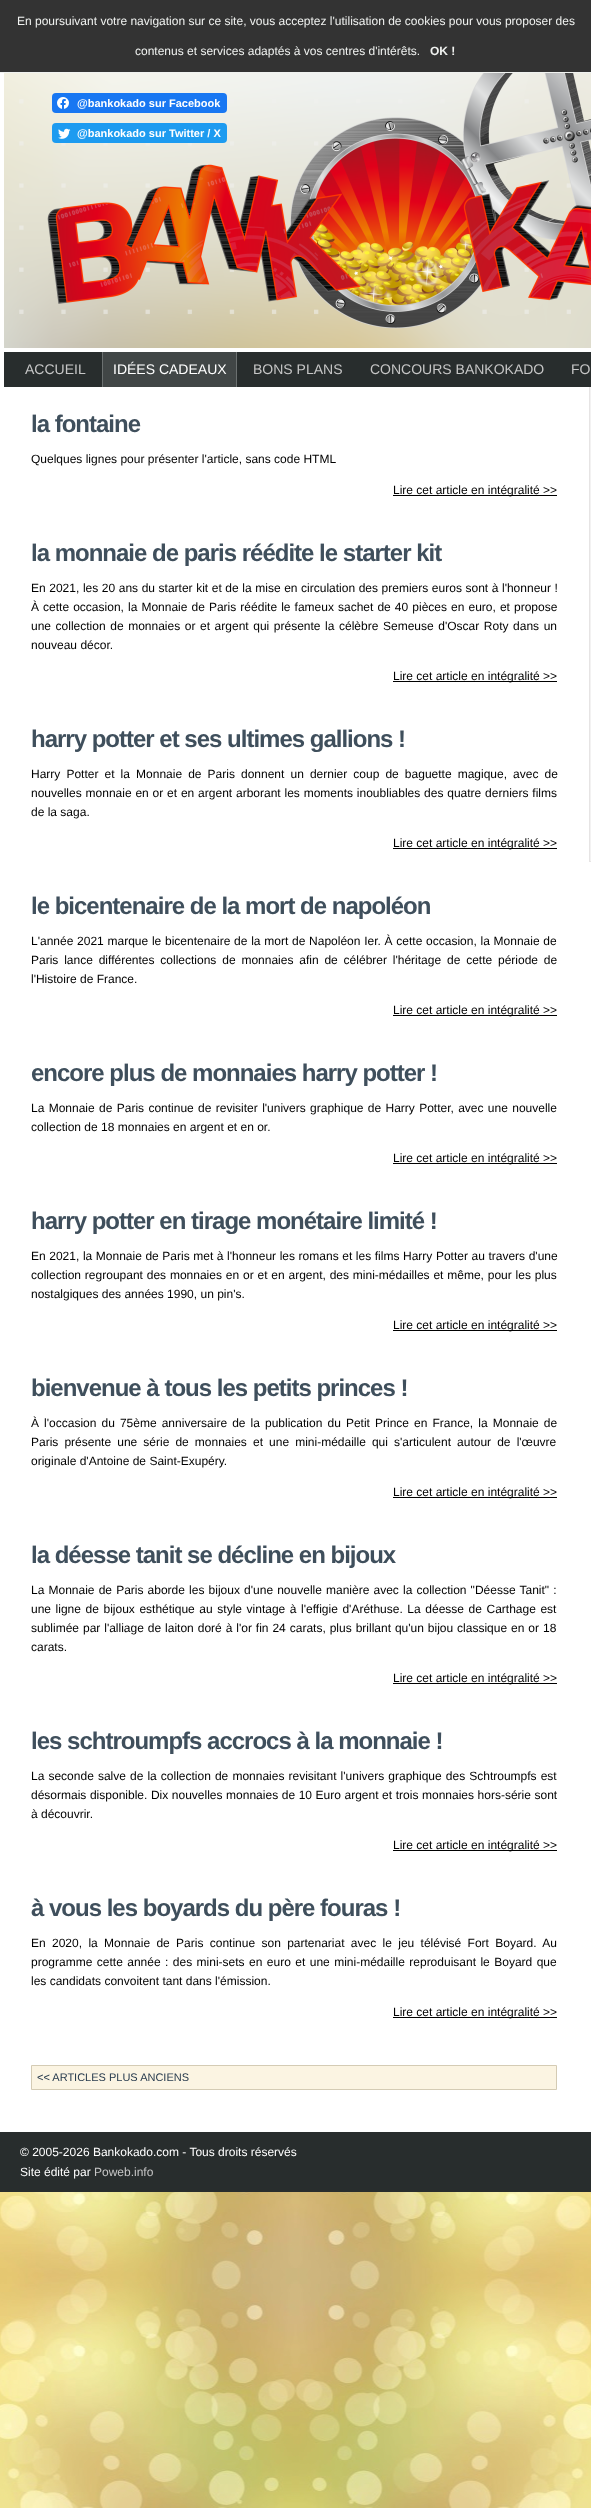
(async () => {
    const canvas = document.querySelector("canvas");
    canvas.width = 591;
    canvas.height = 2508;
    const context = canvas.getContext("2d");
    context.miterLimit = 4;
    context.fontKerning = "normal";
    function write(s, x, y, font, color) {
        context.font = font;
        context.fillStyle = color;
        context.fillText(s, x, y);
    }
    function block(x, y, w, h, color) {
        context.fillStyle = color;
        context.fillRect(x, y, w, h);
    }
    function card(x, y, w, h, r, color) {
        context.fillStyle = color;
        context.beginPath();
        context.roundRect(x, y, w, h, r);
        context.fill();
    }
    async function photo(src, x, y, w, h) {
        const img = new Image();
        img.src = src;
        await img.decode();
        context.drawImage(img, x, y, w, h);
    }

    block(0, 0, 591, 2508, "rgb(255, 255, 255)");
    await photo("media/1.png", 0, 2192, 591, 316);
    block(0, 0, 591, 72, "rgb(51, 51, 51)");
    block(0, 72, 591, 1, "rgb(240, 242, 240)");
    write("En poursuivant votre navigation sur ce site, vous acceptez l'utilisation de cookies pour vous proposer des", 17, 25, "12px Liberation Sans", "rgb(240, 242, 240)");
    write("contenus et services adaptés à vos centres d'intérêts.", 135, 55, "12px Liberation Sans", "rgb(240, 242, 240)");
    write("OK !", 430, 55, "bold 12px Liberation Sans", "rgb(240, 242, 240)");
    await photo("media/2.png", 4, 73, 587, 275);
    card(52, 93, 175, 20, 4, "rgb(24, 119, 242)");
    await photo("media/3.png", 57, 97, 12, 12);
    write("@bankokado sur Facebook", 77, 107, "bold 11px Liberation Sans", "rgb(255, 255, 255)");
    card(52, 123, 175, 20, 4, "rgb(29, 155, 240)");
    await photo("media/4.png", 58, 128, 13, 11);
    write("@bankokado sur Twitter / X", 77, 137, "bold 11px Liberation Sans", "rgb(255, 255, 255)");
    block(4, 352, 587, 35, "rgb(40, 45, 45)");
    write("ACCUEIL", 25, 374, "14px Liberation Sans", "rgb(198, 198, 198)");
    block(103, 352, 133, 35, "rgb(65, 70, 70)");
    block(236, 352, 1, 35, "rgb(107, 112, 112)");
    block(102, 352, 1, 35, "rgb(107, 112, 112)");
    write("IDÉES CADEAUX", 113, 374, "14px Liberation Sans", "rgb(255, 255, 255)");
    write("BONS PLANS", 253, 374, "14px Liberation Sans", "rgb(198, 198, 198)");
    write("CONCOURS BANKOKADO", 370, 374, "14px Liberation Sans", "rgb(198, 198, 198)");
    write("FO", 571, 374, "14px Liberation Sans", "rgb(198, 198, 198)");
    context.letterSpacing = "-1px";
    write("la fontaine", 31, 432, "bold 24px Liberation Sans", "rgb(63, 79, 92)");
    context.letterSpacing = "0px";
    write("Quelques lignes pour présenter l'article, sans code HTML", 31, 463, "12px Liberation Sans", "rgb(0, 0, 0)");
    block(393, 495, 164, 1, "rgb(0, 0, 0)");
    write("Lire cet article en intégralité >>", 393, 494, "12px Liberation Sans", "rgb(0, 0, 0)");
    context.letterSpacing = "-1px";
    write("la monnaie de paris réédite le starter kit", 31, 561, "bold 24px Liberation Sans", "rgb(63, 79, 92)");
    context.letterSpacing = "0px";
    context.wordSpacing = "0.25px";
    write("En 2021, les 20 ans du starter kit et de la mise en circulation des premiers euros sont à l'honneur !", 31, 592, "12px Liberation Sans", "rgb(0, 0, 0)");
    context.wordSpacing = "0.75px";
    write("À cette occasion, la Monnaie de Paris réédite le fameux sachet de 40 pièces en euro, et propose", 31, 611, "12px Liberation Sans", "rgb(0, 0, 0)");
    context.wordSpacing = "1.25px";
    write("une collection de monnaies or et argent qui présente la célèbre Semeuse d'Oscar Roty dans un", 31, 630, "12px Liberation Sans", "rgb(0, 0, 0)");
    context.wordSpacing = "0px";
    write("nouveau décor.", 31, 649, "12px Liberation Sans", "rgb(0, 0, 0)");
    block(393, 681, 164, 1, "rgb(0, 0, 0)");
    write("Lire cet article en intégralité >>", 393, 680, "12px Liberation Sans", "rgb(0, 0, 0)");
    context.letterSpacing = "-1px";
    write("harry potter et ses ultimes gallions !", 31, 747, "bold 24px Liberation Sans", "rgb(63, 79, 92)");
    context.letterSpacing = "0px";
    context.wordSpacing = "2.75px";
    write("Harry Potter et la Monnaie de Paris donnent un dernier coup de baguette magique, avec de", 31, 778, "12px Liberation Sans", "rgb(0, 0, 0)");
    context.wordSpacing = "0.5px";
    write("nouvelles monnaie en or et en argent arborant les moments inoubliables des quatre derniers films", 31, 797, "12px Liberation Sans", "rgb(0, 0, 0)");
    context.wordSpacing = "0px";
    write("de la saga.", 31, 816, "12px Liberation Sans", "rgb(0, 0, 0)");
    block(393, 848, 164, 1, "rgb(0, 0, 0)");
    write("Lire cet article en intégralité >>", 393, 847, "12px Liberation Sans", "rgb(0, 0, 0)");
    context.letterSpacing = "-1px";
    write("le bicentenaire de la mort de napoléon", 31, 914, "bold 24px Liberation Sans", "rgb(63, 79, 92)");
    context.letterSpacing = "0px";
    context.wordSpacing = "0.4px";
    write("L'année 2021 marque le bicentenaire de la mort de Napoléon Ier. À cette occasion, la Monnaie de", 31, 945, "12px Liberation Sans", "rgb(0, 0, 0)");
    context.wordSpacing = "2.5px";
    write("Paris lance différentes collections de monnaies afin de célébrer l'héritage de cette période de", 31, 964, "12px Liberation Sans", "rgb(0, 0, 0)");
    context.wordSpacing = "0px";
    write("l'Histoire de France.", 31, 983, "12px Liberation Sans", "rgb(0, 0, 0)");
    block(393, 1015, 164, 1, "rgb(0, 0, 0)");
    write("Lire cet article en intégralité >>", 393, 1014, "12px Liberation Sans", "rgb(0, 0, 0)");
    context.letterSpacing = "-1px";
    write("encore plus de monnaies harry potter !", 31, 1081, "bold 24px Liberation Sans", "rgb(63, 79, 92)");
    context.letterSpacing = "0px";
    context.wordSpacing = "1px";
    write("La Monnaie de Paris continue de revisiter l'univers graphique de Harry Potter, avec une nouvelle", 31, 1112, "12px Liberation Sans", "rgb(0, 0, 0)");
    context.wordSpacing = "0px";
    write("collection de 18 monnaies en argent et en or.", 31, 1131, "12px Liberation Sans", "rgb(0, 0, 0)");
    block(393, 1163, 164, 1, "rgb(0, 0, 0)");
    write("Lire cet article en intégralité >>", 393, 1162, "12px Liberation Sans", "rgb(0, 0, 0)");
    context.letterSpacing = "-1px";
    write("harry potter en tirage monétaire limité !", 31, 1229, "bold 24px Liberation Sans", "rgb(63, 79, 92)");
    context.letterSpacing = "0px";
    context.wordSpacing = "0.25px";
    write("En 2021, la Monnaie de Paris met à l'honneur les romans et les films Harry Potter au travers d'une", 31, 1260, "12px Liberation Sans", "rgb(0, 0, 0)");
    context.wordSpacing = "0.5px";
    write("collection regroupant des monnaies en or et en argent, des mini-médailles et même, pour les plus", 31, 1279, "12px Liberation Sans", "rgb(0, 0, 0)");
    context.wordSpacing = "0px";
    write("nostalgiques des années 1990, un pin's.", 31, 1298, "12px Liberation Sans", "rgb(0, 0, 0)");
    block(393, 1330, 164, 1, "rgb(0, 0, 0)");
    write("Lire cet article en intégralité >>", 393, 1329, "12px Liberation Sans", "rgb(0, 0, 0)");
    context.letterSpacing = "-1px";
    write("bienvenue à tous les petits princes !", 31, 1396, "bold 24px Liberation Sans", "rgb(63, 79, 92)");
    context.letterSpacing = "0px";
    context.wordSpacing = "1.75px";
    write("À l'occasion du 75ème anniversaire de la publication du Petit Prince en France, la Monnaie de", 31, 1427, "12px Liberation Sans", "rgb(0, 0, 0)");
    context.wordSpacing = "2.75px";
    write("Paris présente une série de monnaies et une mini-médaille qui s'articulent autour de l'œuvre", 31, 1446, "12px Liberation Sans", "rgb(0, 0, 0)");
    context.wordSpacing = "0px";
    write("originale d'Antoine de Saint-Exupéry.", 31, 1465, "12px Liberation Sans", "rgb(0, 0, 0)");
    block(393, 1497, 164, 1, "rgb(0, 0, 0)");
    write("Lire cet article en intégralité >>", 393, 1496, "12px Liberation Sans", "rgb(0, 0, 0)");
    context.letterSpacing = "-1px";
    write("la déesse tanit se décline en bijoux", 31, 1563, "bold 24px Liberation Sans", "rgb(63, 79, 92)");
    context.letterSpacing = "0px";
    context.wordSpacing = "0.8px";
    write("La Monnaie de Paris aborde les bijoux d'une nouvelle manière avec la collection \"Déesse Tanit\" :", 31, 1594, "12px Liberation Sans", "rgb(0, 0, 0)");
    context.wordSpacing = "1.25px";
    write("une ligne de bijoux esthétique au style vintage à l'effigie d'Aréthuse. La déesse de Carthage est", 31, 1613, "12px Liberation Sans", "rgb(0, 0, 0)");
    context.wordSpacing = "0.6px";
    write("sublimée par l'alliage de laiton doré à l'or fin 24 carats, plus brillant qu'un bijou classique en or 18", 31, 1632, "12px Liberation Sans", "rgb(0, 0, 0)");
    context.wordSpacing = "0px";
    write("carats.", 31, 1651, "12px Liberation Sans", "rgb(0, 0, 0)");
    block(393, 1683, 164, 1, "rgb(0, 0, 0)");
    write("Lire cet article en intégralité >>", 393, 1682, "12px Liberation Sans", "rgb(0, 0, 0)");
    context.letterSpacing = "-1px";
    write("les schtroumpfs accrocs à la monnaie !", 31, 1749, "bold 24px Liberation Sans", "rgb(63, 79, 92)");
    context.letterSpacing = "0px";
    context.wordSpacing = "0.75px";
    write("La seconde salve de la collection de monnaies revisitant l'univers graphique des Schtroumpfs est", 31, 1780, "12px Liberation Sans", "rgb(0, 0, 0)");
    context.wordSpacing = "0.25px";
    write("désormais disponible. Dix nouvelles monnaies de 10 Euro argent et trois monnaies hors-série sont", 31, 1799, "12px Liberation Sans", "rgb(0, 0, 0)");
    context.wordSpacing = "0px";
    write("à découvrir.", 31, 1818, "12px Liberation Sans", "rgb(0, 0, 0)");
    block(393, 1850, 164, 1, "rgb(0, 0, 0)");
    write("Lire cet article en intégralité >>", 393, 1849, "12px Liberation Sans", "rgb(0, 0, 0)");
    context.letterSpacing = "-1px";
    write("à vous les boyards du père fouras !", 31, 1916, "bold 24px Liberation Sans", "rgb(63, 79, 92)");
    context.letterSpacing = "0px";
    context.wordSpacing = "3px";
    write("En 2020, la Monnaie de Paris continue son partenariat avec le jeu télévisé Fort Boyard. Au", 31, 1947, "12px Liberation Sans", "rgb(0, 0, 0)");
    context.wordSpacing = "1.1px";
    write("programme cette année : des mini-sets en euro et une mini-médaille reproduisant le Boyard que", 31, 1966, "12px Liberation Sans", "rgb(0, 0, 0)");
    context.wordSpacing = "0px";
    write("les candidats convoitent tant dans l'émission.", 31, 1985, "12px Liberation Sans", "rgb(0, 0, 0)");
    block(393, 2017, 164, 1, "rgb(0, 0, 0)");
    write("Lire cet article en intégralité >>", 393, 2016, "12px Liberation Sans", "rgb(0, 0, 0)");
    context.fillStyle = "rgb(251, 244, 226)";
    context.beginPath();
    context.rect(31.5, 2065.5, 525, 24);
    context.fill();
    context.strokeStyle = "rgb(212, 203, 180)";
    context.stroke();
    write("<< ARTICLES PLUS ANCIENS", 37, 2081, "11px Liberation Sans", "rgb(39, 58, 77)");
    block(590, 387, 1, 475, "rgb(243, 242, 242)");
    block(589, 861, 2, 1, "rgb(230, 228, 228)");
    block(589, 387, 1, 475, "rgb(230, 228, 228)");
    block(0, 2132, 591, 60, "rgb(40, 45, 45)");
    write("© 2005-2026 Bankokado.com - Tous droits réservés", 20, 2156, "12px Liberation Sans", "rgb(255, 255, 255)");
    write("Site édité par", 20, 2176, "12px Liberation Sans", "rgb(255, 255, 255)");
    write("Poweb.info", 94, 2176, "12px Liberation Sans", "rgb(198, 198, 198)");
})();
